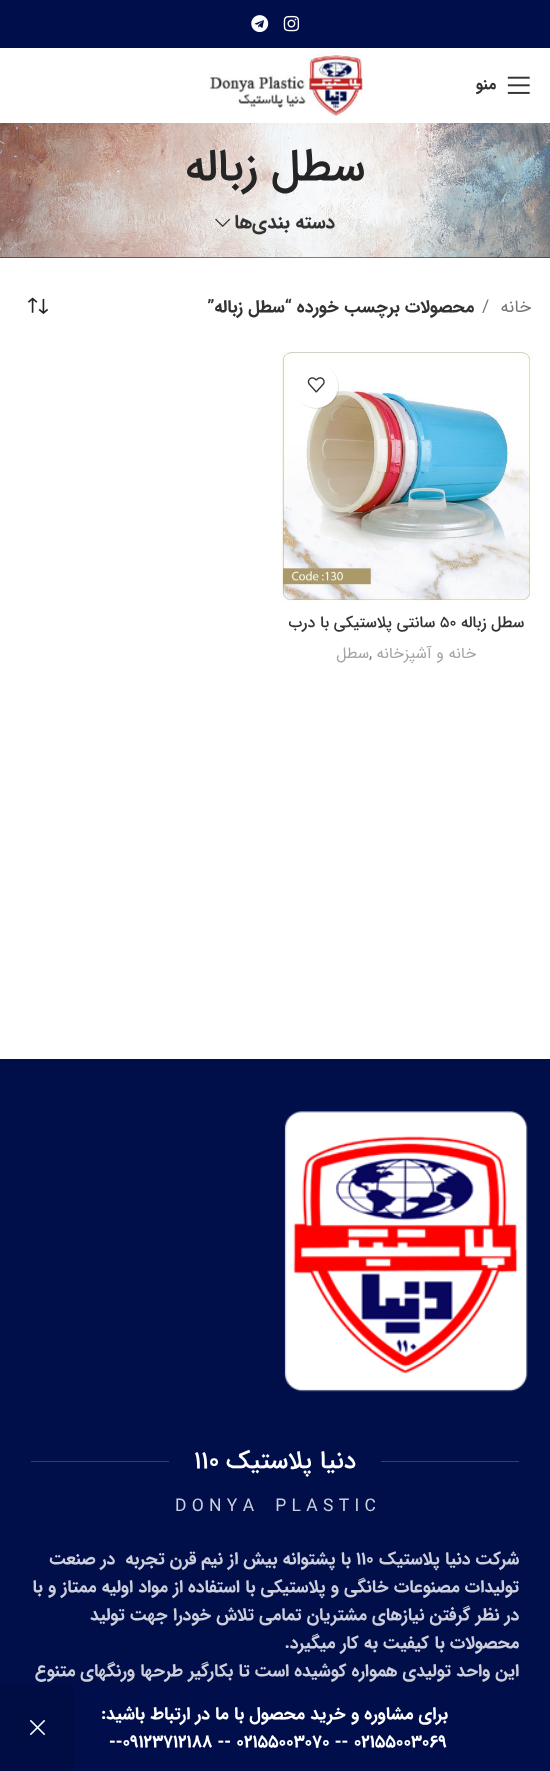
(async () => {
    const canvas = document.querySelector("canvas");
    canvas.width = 550;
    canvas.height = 1771;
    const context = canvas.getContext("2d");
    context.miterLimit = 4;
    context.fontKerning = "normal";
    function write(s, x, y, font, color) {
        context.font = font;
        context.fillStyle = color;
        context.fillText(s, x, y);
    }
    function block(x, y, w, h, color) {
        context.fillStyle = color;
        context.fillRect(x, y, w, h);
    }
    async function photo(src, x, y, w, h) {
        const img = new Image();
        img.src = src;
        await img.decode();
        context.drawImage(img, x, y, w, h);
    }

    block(0, 0, 550, 1771, "rgb(255, 255, 255)");
    block(0, 0, 550, 48, "rgb(0, 14, 75)");
    await photo("media/1.png", 283, 15, 17, 17);
    await photo("media/2.png", 251, 15, 18, 18);
    await photo("media/3.png", 507, 76, 23, 18);
    context.direction = "rtl";
    write("منو", 496, 89, "bold 16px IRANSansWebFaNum", "rgb(51, 51, 51)");
    await photo("media/4.png", 209, 53, 157, 63);
    block(0, 257, 550, 1, "rgb(10, 10, 10)");
    await photo("media/5.png", 0, 123, 550, 135);
    write("سطل زباله", 365, 180, "500 45px IRANSansWebFaNum", "rgb(36, 36, 36)");
    write("دسته بندی‌ها", 335, 228, "bold 19.25px IRANSansWebFaNum", "rgb(51, 51, 51)");
    await photo("media/6.png", 215, 218, 16, 9);
    write("خانه", 531, 312, "17.5px IRANSansWebFaNum", "rgb(119, 119, 119)");
    context.direction = "ltr";
    write("/", 482, 312, "17.5px IRANSansWebFaNum", "rgb(119, 119, 119)");
    context.direction = "rtl";
    write("محصولات برچسب خورده “سطل زباله”", 474, 312, "bold 17.5px IRANSansWebFaNum", "rgb(51, 51, 51)");
    await photo("media/7.png", 27, 297, 22, 17);
    await photo("media/8.png", 281, 351, 250, 250);
    context.fillStyle = "rgba(0, 0, 0, 0.1)";
    context.filter = "blur(0.5px)";
    context.beginPath();
    context.roundRect(295, 365, 44, 44, 22);
    context.fill();
    context.filter = "none";
    context.fillStyle = "rgb(255, 255, 255)";
    context.beginPath();
    context.arc(316, 386, 22, 0, Math.PI * 2);
    context.fill();
    await photo("media/9.png", 307, 377, 18, 16);
    write("سطل زباله", 524, 627, "500 15.75px IRANSansWebFaNum", "rgb(51, 51, 51)");
    context.direction = "ltr";
    write("50", 440, 627, "500 15.75px IRANSansWebFaNum", "rgb(51, 51, 51)");
    context.direction = "rtl";
    write("سانتی پلاستیکی با درب", 435, 627, "500 15.75px IRANSansWebFaNum", "rgb(51, 51, 51)");
    write("خانه و آشپزخانه", 476, 658, "15.75px IRANSansWebFaNum", "rgb(165, 165, 165)");
    context.direction = "ltr";
    write(",", 369, 658, "15.75px IRANSansWebFaNum", "rgb(119, 119, 119)");
    context.direction = "rtl";
    write("سطل", 369, 658, "15.75px IRANSansWebFaNum", "rgb(165, 165, 165)");
    block(0, 1059, 550, 626, "rgb(0, 14, 73)");
    await photo("media/10.png", 284, 1111, 244, 281);
    block(381, 1461, 138, 1, "rgb(51, 62, 109)");
    write("دنیا پلاستیک", 356, 1468, "500 25px IRANSansWebFaNum", "rgb(255, 255, 255)");
    context.direction = "ltr";
    write("110", 194, 1468, "500 25px IRANSansWebFaNum", "rgb(255, 255, 255)");
    block(31, 1461, 138, 1, "rgb(51, 62, 109)");
    write("D O N Y A    P L A S T I C", 175, 1511, "17.5px IRANSansWebFaNum", "rgb(204, 207, 219)");
    context.direction = "rtl";
    write("شرکت دنیا پلاستیک", 519, 1564, "bold 17.5px IRANSansWebFaNum", "rgb(204, 207, 219)");
    context.direction = "ltr";
    write("110", 356, 1564, "bold 17.5px IRANSansWebFaNum", "rgb(204, 207, 219)");
    context.direction = "rtl";
    write("با پشتوانه بیش از نیم قرن تجربه", 351, 1564, "bold 17.5px IRANSansWebFaNum", "rgb(204, 207, 219)");
    write("در صنعت", 115, 1564, "bold 17.5px IRANSansWebFaNum", "rgb(204, 207, 219)");
    write("تولیدات مصنوعات خانگی و پلاستیکی با استفاده از مواد اولیه ممتاز و با", 519, 1592, "bold 17.5px IRANSansWebFaNum", "rgb(204, 207, 219)");
    write("در نظر گرفتن نیازهای مشتریان تمامی تلاش خودرا جهت تولید", 519, 1620, "bold 17.5px IRANSansWebFaNum", "rgb(204, 207, 219)");
    write("محصولات با کیفیت به کار میگیرد.", 519, 1648, "bold 17.5px IRANSansWebFaNum", "rgb(204, 207, 219)");
    write("این واحد تولیدی همواره کوشیده است تا بکارگیر طرحها ورنگهای متنوع", 519, 1676, "bold 17.5px IRANSansWebFaNum", "rgb(204, 207, 219)");
    block(75, 1685, 475, 86, "rgb(0, 14, 75)");
    write("برای مشاوره و خرید محصول با ما در ارتباط باشید:", 448, 1719, "bold 17.5px IRANSansWebFaNum", "rgb(255, 255, 255)");
    block(0, 1685, 75, 86, "rgb(0, 13, 68)");
    await photo("media/11.png", 29, 1719, 17, 17);
    context.direction = "ltr";
    write("--09123712188 -- 02155003070 -- 02155003069", 109, 1747, "bold 17.5px IRANSansWebFaNum", "rgb(255, 255, 255)");
})();
